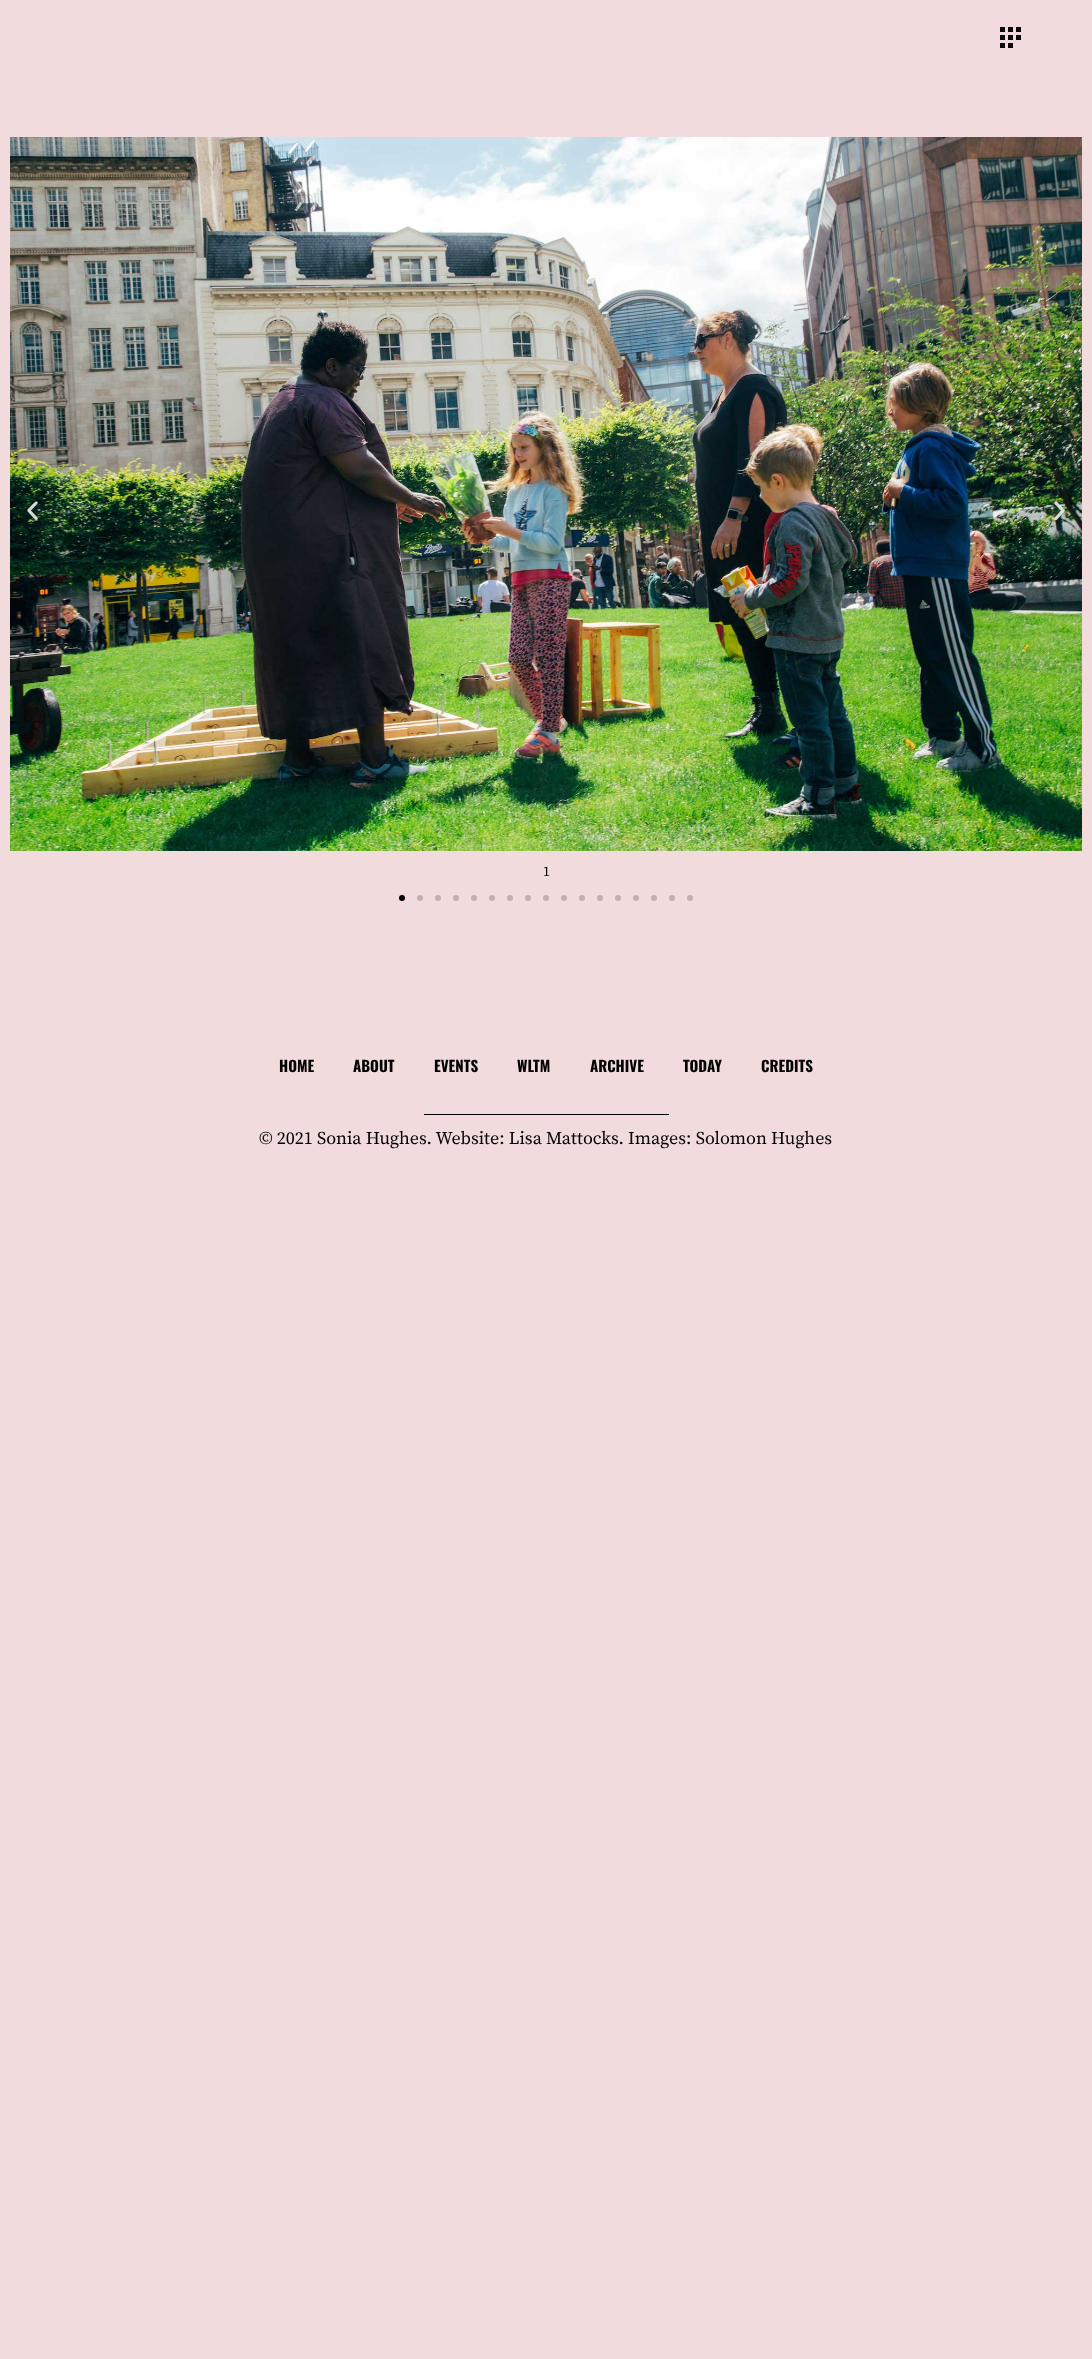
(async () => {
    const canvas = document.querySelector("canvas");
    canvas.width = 1092;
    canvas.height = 2359;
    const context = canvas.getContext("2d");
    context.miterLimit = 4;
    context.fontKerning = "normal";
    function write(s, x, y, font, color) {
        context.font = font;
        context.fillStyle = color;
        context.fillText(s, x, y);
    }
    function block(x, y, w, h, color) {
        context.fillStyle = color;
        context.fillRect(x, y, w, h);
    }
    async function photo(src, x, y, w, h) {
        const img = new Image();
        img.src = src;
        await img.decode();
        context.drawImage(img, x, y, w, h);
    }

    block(0, 0, 1092, 2359, "rgb(242, 219, 220)");
    await photo("media/1.png", 1000, 27, 21, 21);
    await photo("media/4.png", 10, 137, 1072, 714);
    await photo("media/2.png", 27, 501, 11, 20);
    await photo("media/3.png", 1054, 501, 11, 20);
    write("1", 543, 876, "14px Source Serif Pro", "rgb(0, 0, 0)");
    context.beginPath();
    context.arc(402, 898, 3, 0, Math.PI * 2);
    context.fill();
    context.fillStyle = "rgb(194, 175, 176)";
    context.beginPath();
    context.arc(420, 898, 3, 0, Math.PI * 2);
    context.fill();
    context.beginPath();
    context.arc(438, 898, 3, 0, Math.PI * 2);
    context.fill();
    context.beginPath();
    context.arc(456, 898, 3, 0, Math.PI * 2);
    context.fill();
    context.beginPath();
    context.arc(474, 898, 3, 0, Math.PI * 2);
    context.fill();
    context.beginPath();
    context.arc(492, 898, 3, 0, Math.PI * 2);
    context.fill();
    context.beginPath();
    context.arc(510, 898, 3, 0, Math.PI * 2);
    context.fill();
    context.beginPath();
    context.arc(528, 898, 3, 0, Math.PI * 2);
    context.fill();
    context.beginPath();
    context.arc(546, 898, 3, 0, Math.PI * 2);
    context.fill();
    context.beginPath();
    context.arc(564, 898, 3, 0, Math.PI * 2);
    context.fill();
    context.beginPath();
    context.arc(582, 898, 3, 0, Math.PI * 2);
    context.fill();
    context.beginPath();
    context.arc(600, 898, 3, 0, Math.PI * 2);
    context.fill();
    context.beginPath();
    context.arc(618, 898, 3, 0, Math.PI * 2);
    context.fill();
    context.beginPath();
    context.arc(636, 898, 3, 0, Math.PI * 2);
    context.fill();
    context.beginPath();
    context.arc(654, 898, 3, 0, Math.PI * 2);
    context.fill();
    context.beginPath();
    context.arc(672, 898, 3, 0, Math.PI * 2);
    context.fill();
    context.beginPath();
    context.arc(690, 898, 3, 0, Math.PI * 2);
    context.fill();
    write("HOME", 279, 1072, "bold 15px Oswald", "rgb(0, 0, 0)");
    write("ABOUT", 353, 1072, "bold 15px Oswald", "rgb(0, 0, 0)");
    write("EVENTS", 434, 1072, "bold 15px Oswald", "rgb(0, 0, 0)");
    write("WLTM", 517, 1072, "bold 15px Oswald", "rgb(0, 0, 0)");
    write("ARCHIVE", 590, 1072, "bold 15px Oswald", "rgb(0, 0, 0)");
    write("TODAY", 683, 1072, "bold 15px Oswald", "rgb(0, 0, 0)");
    write("CREDITS", 761, 1072, "bold 15px Oswald", "rgb(0, 0, 0)");
    block(424, 1114, 245, 1, "rgb(0, 0, 0)");
    write("© 2021 Sonia Hughes. Website: Lisa Mattocks. Images: Solomon Hughes", 259, 1144, "18px Source Serif Pro", "rgb(0, 0, 0)");
})();
